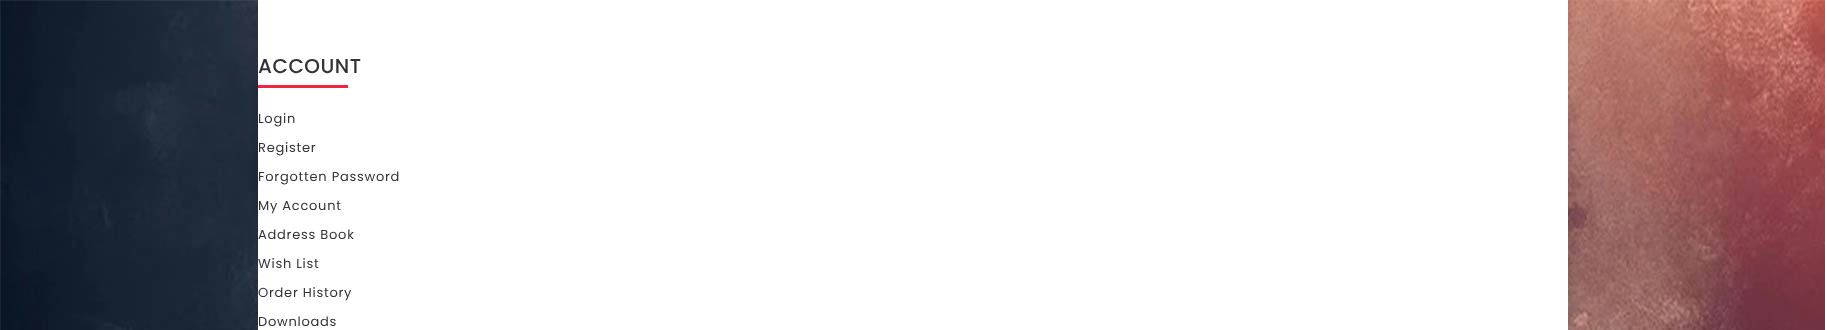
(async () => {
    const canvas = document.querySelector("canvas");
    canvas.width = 1825;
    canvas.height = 330;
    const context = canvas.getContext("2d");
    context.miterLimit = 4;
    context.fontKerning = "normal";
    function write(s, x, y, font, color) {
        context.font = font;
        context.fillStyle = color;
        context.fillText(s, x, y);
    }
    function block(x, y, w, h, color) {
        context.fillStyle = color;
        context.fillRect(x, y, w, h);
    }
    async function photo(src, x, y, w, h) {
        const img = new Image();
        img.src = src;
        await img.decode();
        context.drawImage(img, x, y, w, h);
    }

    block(0, 0, 1825, 330, "rgb(255, 255, 255)");
    await photo("media/1.png", 0, 0, 1825, 330);
    context.fillStyle = "rgba(0, 0, 0, 0.12)";
    context.filter = "blur(4px)";
    context.beginPath();
    context.rect(258, 0, 1310, 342);
    context.fill();
    context.filter = "none";
    block(258, 0, 1310, 330, "rgb(255, 255, 255)");
    context.letterSpacing = "0.5px";
    write("ACCOUNT", 258, 73, "500 20px Poppins", "rgb(51, 51, 51)");
    block(258, 85, 90, 3, "rgb(240, 38, 64)");
    context.letterSpacing = "0.75px";
    write("Login", 258, 123, "13px Poppins", "rgb(51, 51, 51)");
    write("Register", 258, 152, "13px Poppins", "rgb(51, 51, 51)");
    write("Forgotten Password", 258, 181, "13px Poppins", "rgb(51, 51, 51)");
    write("My Account", 258, 210, "13px Poppins", "rgb(51, 51, 51)");
    write("Address Book", 258, 239, "13px Poppins", "rgb(51, 51, 51)");
    write("Wish List", 258, 268, "13px Poppins", "rgb(51, 51, 51)");
    write("Order History", 258, 297, "13px Poppins", "rgb(51, 51, 51)");
    write("Downloads", 258, 326, "13px Poppins", "rgb(51, 51, 51)");
})();
